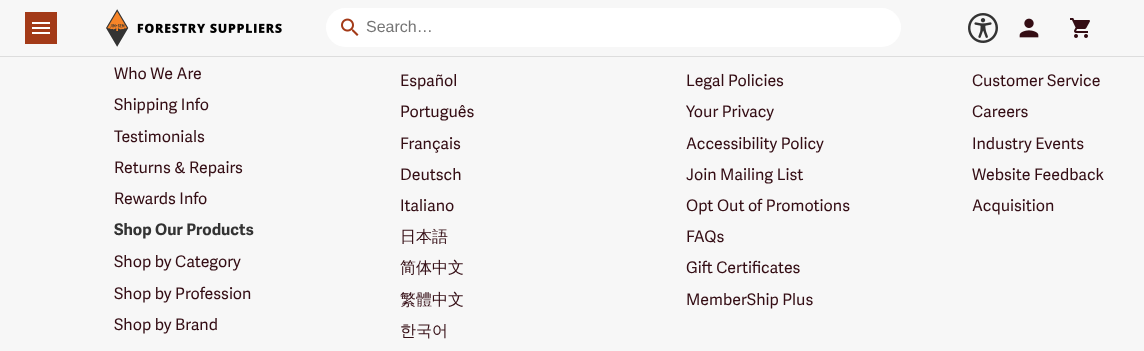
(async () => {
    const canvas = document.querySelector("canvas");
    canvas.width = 1144;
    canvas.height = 351;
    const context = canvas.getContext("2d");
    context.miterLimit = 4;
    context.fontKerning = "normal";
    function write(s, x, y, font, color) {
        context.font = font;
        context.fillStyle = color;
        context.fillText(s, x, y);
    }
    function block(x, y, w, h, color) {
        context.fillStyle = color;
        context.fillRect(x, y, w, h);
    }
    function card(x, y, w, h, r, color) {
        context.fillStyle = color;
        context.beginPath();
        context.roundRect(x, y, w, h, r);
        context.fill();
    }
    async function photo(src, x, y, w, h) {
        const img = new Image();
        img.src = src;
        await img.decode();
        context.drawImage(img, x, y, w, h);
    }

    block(0, 0, 1144, 351, "rgb(247, 247, 247)");
    block(0, 56, 1144, 1, "rgb(221, 221, 221)");
    block(25, 12, 32, 32, "rgb(163, 58, 24)");
    await photo("media/1.png", 32, 22, 18, 12);
    await photo("media/2.png", 106, 9, 176, 38);
    card(326, 8, 575, 39, 19.5, "rgb(255, 255, 255)");
    await photo("media/3.png", 341, 18, 18, 18);
    write("Search…", 366, 32, "16px Liberation Sans", "rgb(117, 117, 117)");
    await photo("media/4.png", 968, 13, 30, 30);
    await photo("media/5.png", 1019, 18, 20, 20);
    await photo("media/6.png", 1070, 18, 20, 20);
    write("Who We Are", 114, 79, "16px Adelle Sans", "rgb(52, 13, 20)");
    write("Shipping Info", 114, 110, "16px Adelle Sans", "rgb(52, 13, 20)");
    write("Testimonials", 114, 142, "16px Adelle Sans", "rgb(52, 13, 20)");
    write("Returns & Repairs", 114, 173, "16px Adelle Sans", "rgb(52, 13, 20)");
    write("Rewards Info", 114, 204, "16px Adelle Sans", "rgb(52, 13, 20)");
    write("Shop Our Products", 114, 235, "bold 16px Adelle Sans", "rgb(51, 51, 51)");
    write("Shop by Category", 114, 267, "16px Adelle Sans", "rgb(52, 13, 20)");
    write("Shop by Profession", 114, 299, "16px Adelle Sans", "rgb(52, 13, 20)");
    write("Shop by Brand", 114, 330, "16px Adelle Sans", "rgb(52, 13, 20)");
    write("Español", 400, 86, "16px Adelle Sans", "rgb(52, 13, 20)");
    write("Português", 400, 117, "16px Adelle Sans", "rgb(52, 13, 20)");
    write("Français", 400, 149, "16px Adelle Sans", "rgb(52, 13, 20)");
    write("Deutsch", 400, 180, "16px Adelle Sans", "rgb(52, 13, 20)");
    write("Italiano", 400, 211, "16px Adelle Sans", "rgb(52, 13, 20)");
    write("日本語", 400, 242, "500 16px WenQuanYi Zen Hei", "rgb(52, 13, 20)");
    write("简体中文", 400, 273, "500 16px WenQuanYi Zen Hei", "rgb(52, 13, 20)");
    write("繁體中文", 400, 305, "500 16px WenQuanYi Zen Hei", "rgb(52, 13, 20)");
    write("한국어", 400, 336, "500 16px WenQuanYi Zen Hei", "rgb(52, 13, 20)");
    write("Legal Policies", 686, 86, "16px Adelle Sans", "rgb(52, 13, 20)");
    write("Your Privacy", 686, 117, "16px Adelle Sans", "rgb(52, 13, 20)");
    write("Accessibility Policy", 686, 149, "16px Adelle Sans", "rgb(52, 13, 20)");
    write("Join Mailing List", 686, 180, "16px Adelle Sans", "rgb(52, 13, 20)");
    write("Opt Out of Promotions", 686, 211, "16px Adelle Sans", "rgb(52, 13, 20)");
    write("FAQs", 686, 242, "16px Adelle Sans", "rgb(52, 13, 20)");
    write("Gift Certificates", 686, 273, "16px Adelle Sans", "rgb(52, 13, 20)");
    write("MemberShip Plus", 686, 305, "16px Adelle Sans", "rgb(52, 13, 20)");
    write("Customer Service", 972, 86, "16px Adelle Sans", "rgb(52, 13, 20)");
    write("Careers", 972, 117, "16px Adelle Sans", "rgb(52, 13, 20)");
    write("Industry Events", 972, 149, "16px Adelle Sans", "rgb(52, 13, 20)");
    write("Website Feedback", 972, 180, "16px Adelle Sans", "rgb(52, 13, 20)");
    write("Acquisition", 972, 211, "16px Adelle Sans", "rgb(52, 13, 20)");
})();
